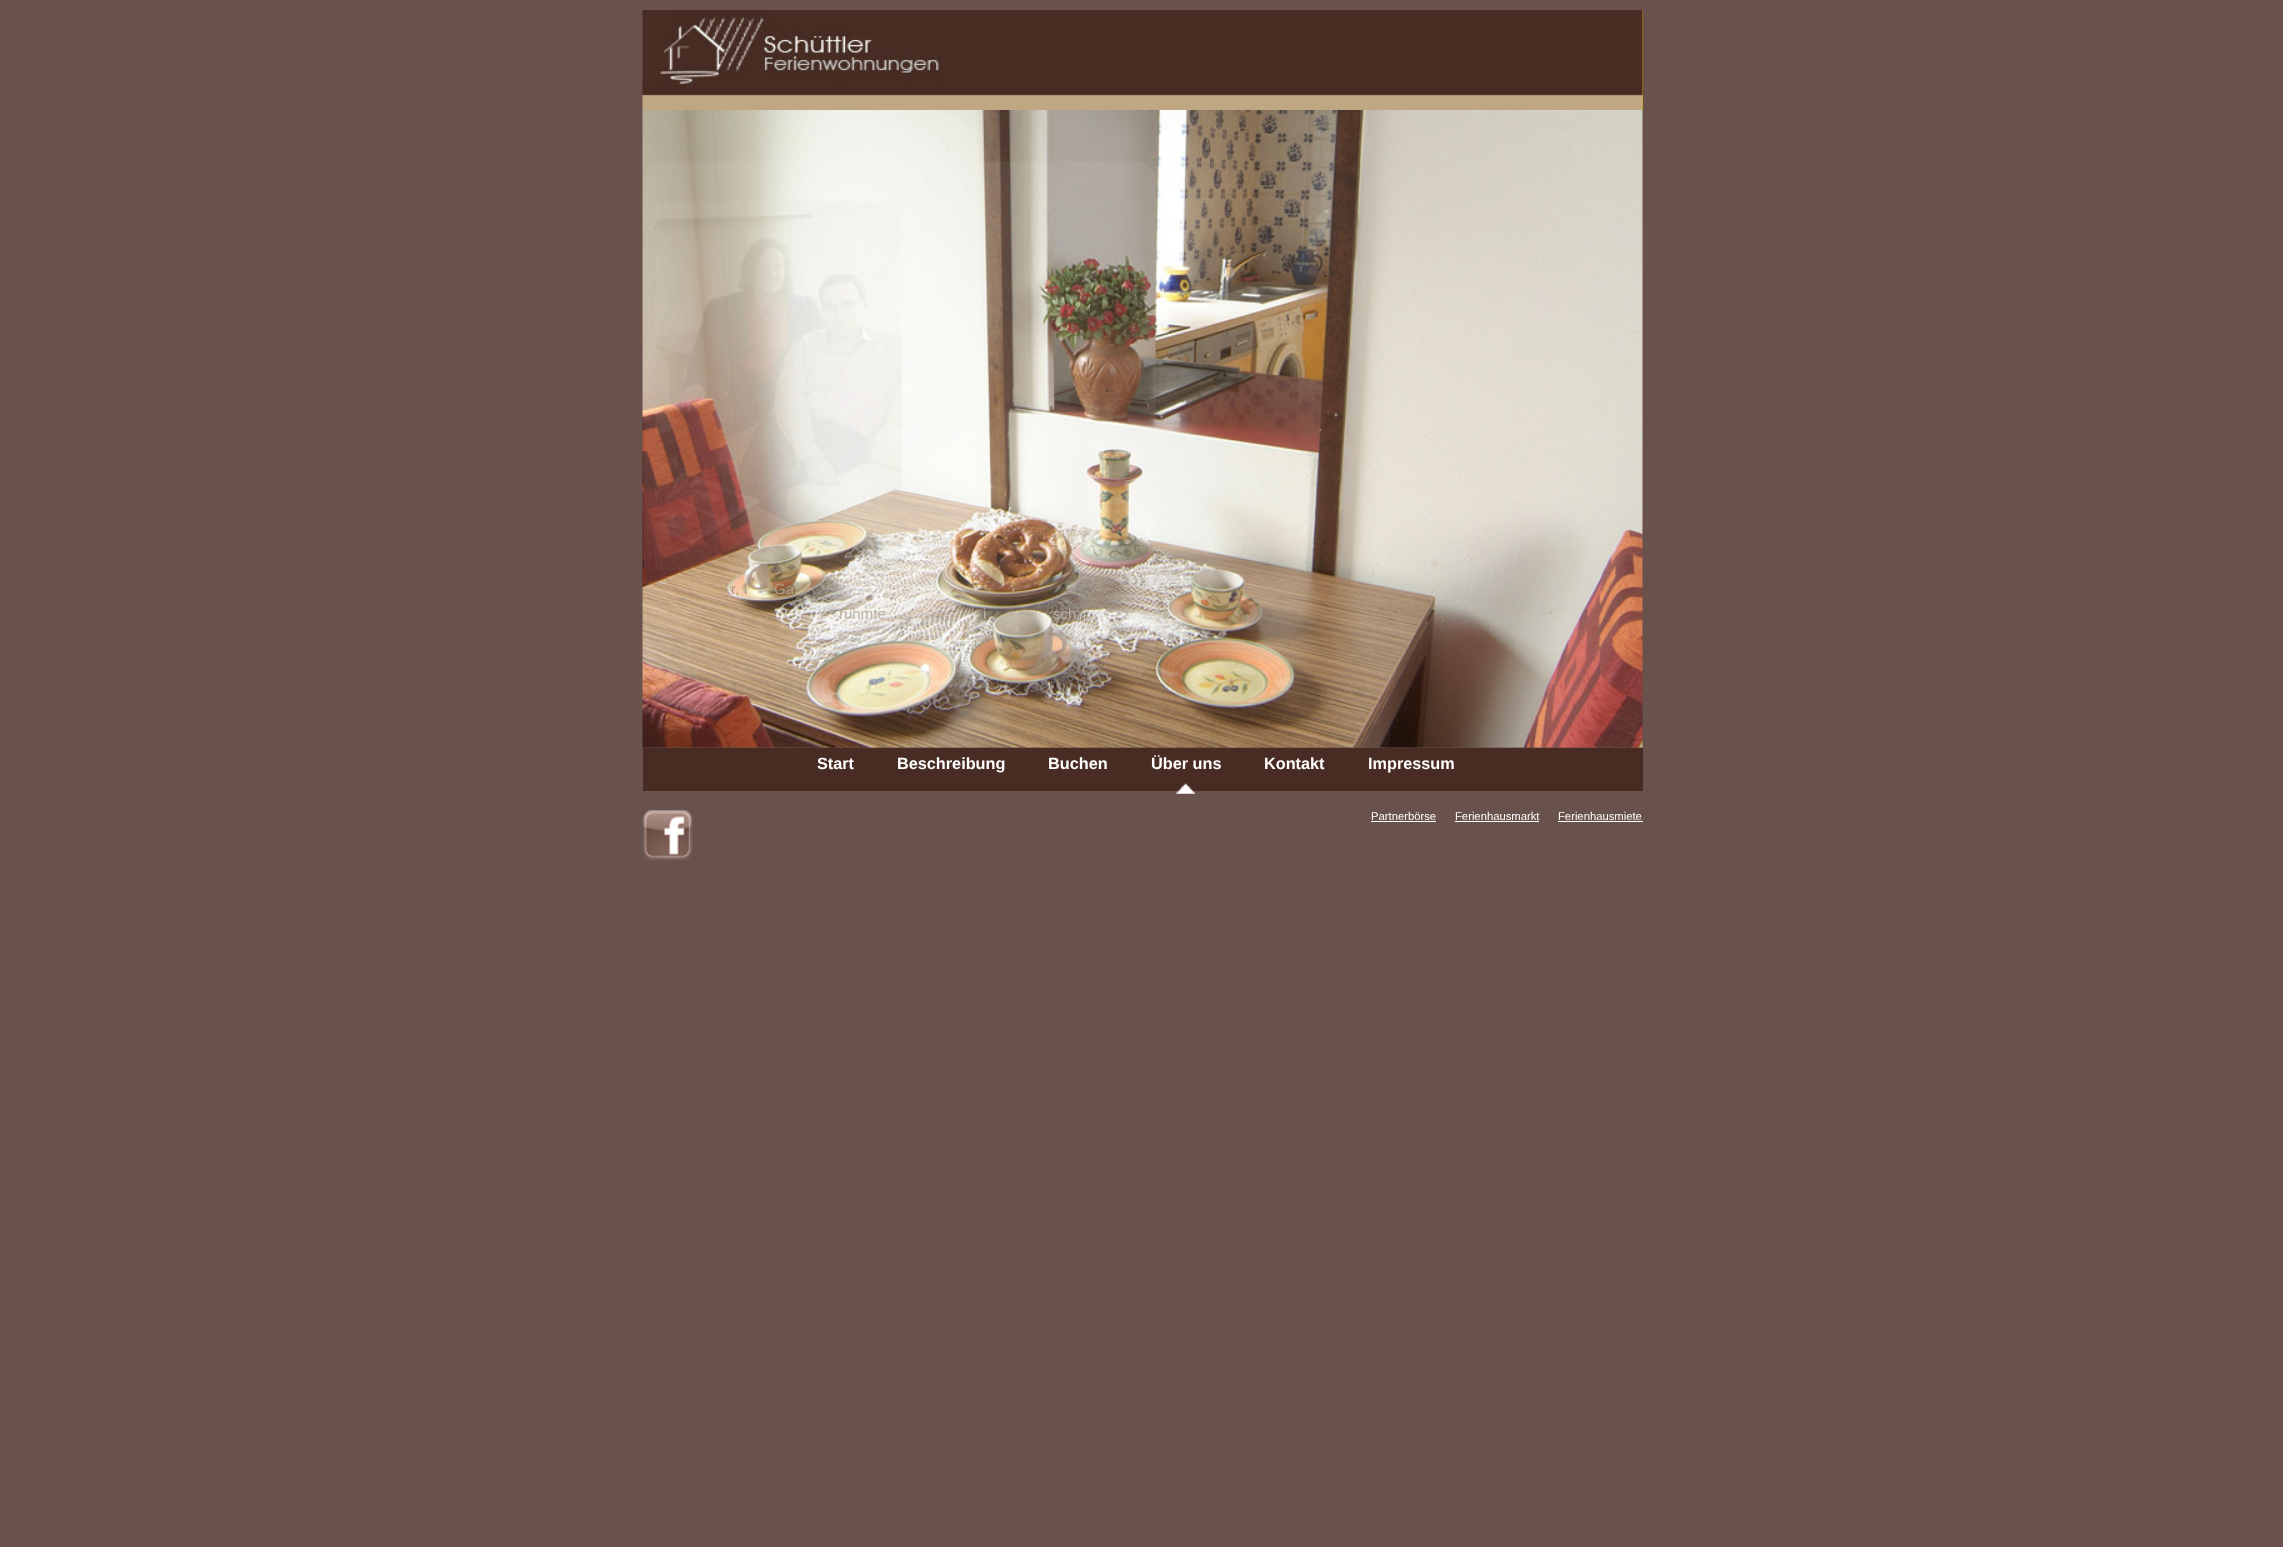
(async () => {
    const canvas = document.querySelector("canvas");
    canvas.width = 2283;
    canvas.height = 1547;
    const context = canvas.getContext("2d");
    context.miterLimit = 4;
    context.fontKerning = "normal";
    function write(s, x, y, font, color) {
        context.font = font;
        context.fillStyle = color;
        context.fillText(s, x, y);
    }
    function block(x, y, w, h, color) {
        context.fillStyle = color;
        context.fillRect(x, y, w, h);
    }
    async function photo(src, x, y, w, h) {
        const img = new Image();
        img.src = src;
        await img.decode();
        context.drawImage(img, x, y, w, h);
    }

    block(0, 0, 2283, 1547, "rgb(105, 81, 76)");
    block(1642, 10, 1, 100, "rgb(204, 153, 0)");
    await photo("media/1.png", 642, 10, 1001, 100);
    await photo("media/2.png", 642, 110, 1001, 638);
    await photo("media/3.png", 644, 161, 512, 513);
    await photo("media/4.png", 655, 201, 248, 369);
    write("r, I", 731, 594, "15px Liberation Sans", "rgb(178, 156, 130)");
    write("Ga", 774, 594, "15px Liberation Sans", "rgb(178, 156, 130)");
    write(".", 843, 594, "15px Liberation Sans", "rgb(178, 156, 130)");
    write("rühmte", 839, 619, "15px Liberation Sans", "rgb(190, 177, 161)");
    write("i", 983, 619, "15px Liberation Sans", "rgb(190, 177, 161)");
    write("sch", 1053, 619, "15px Liberation Sans", "rgb(190, 177, 161)");
    block(643, 748, 1000, 43, "rgb(72, 44, 36)");
    write("Start", 817, 769, "bold 16.25px Liberation Sans", "rgb(255, 255, 255)");
    write("Beschreibung", 897, 769, "bold 16.25px Liberation Sans", "rgb(255, 255, 255)");
    write("Buchen", 1048, 769, "bold 16.25px Liberation Sans", "rgb(255, 255, 255)");
    write("Über uns", 1151, 769, "bold 16.25px Liberation Sans", "rgb(255, 255, 255)");
    write("Kontakt", 1264, 769, "bold 16.25px Liberation Sans", "rgb(255, 255, 255)");
    write("Impressum", 1368, 769, "bold 16.25px Liberation Sans", "rgb(255, 255, 255)");
    await photo("media/5.png", 1176, 783, 19, 11);
    await photo("media/6.png", 642, 810, 51, 51);
    write("Partnerbörse", 1371, 820, "11.25px Liberation Sans", "rgb(255, 255, 255)");
    block(1371, 821, 65, 1, "rgb(255, 255, 255)");
    write("Ferienhausmarkt", 1455, 820, "11.25px Liberation Sans", "rgb(255, 255, 255)");
    block(1455, 821, 84, 1, "rgb(255, 255, 255)");
    write("Ferienhausmiete", 1558, 820, "11.25px Liberation Sans", "rgb(255, 255, 255)");
    block(1558, 821, 85, 1, "rgb(255, 255, 255)");
})();
